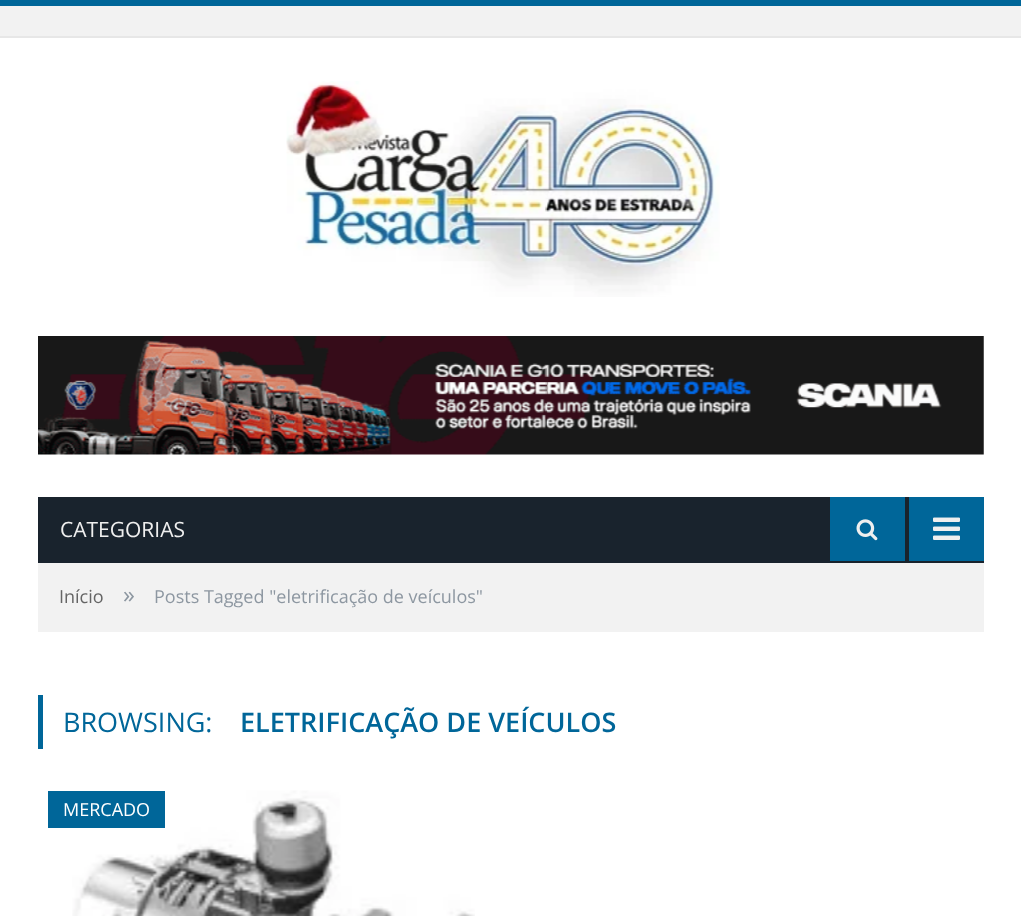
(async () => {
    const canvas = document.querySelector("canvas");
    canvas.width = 1021;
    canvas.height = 916;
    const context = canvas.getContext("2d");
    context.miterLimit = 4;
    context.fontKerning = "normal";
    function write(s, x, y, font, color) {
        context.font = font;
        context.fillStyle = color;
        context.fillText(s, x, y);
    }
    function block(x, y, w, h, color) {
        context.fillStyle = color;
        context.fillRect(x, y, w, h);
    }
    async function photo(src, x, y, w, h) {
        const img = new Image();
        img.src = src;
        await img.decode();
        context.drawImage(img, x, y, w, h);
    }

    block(0, 0, 1021, 916, "rgb(255, 255, 255)");
    block(0, 6, 1021, 30, "rgb(242, 242, 242)");
    block(0, 0, 1021, 6, "rgb(0, 102, 153)");
    block(0, 36, 1021, 2, "rgb(231, 231, 231)");
    await photo("media/1.png", 286, 81, 434, 216);
    await photo("media/2.png", 38, 336, 946, 119);
    block(38, 497, 946, 66, "rgb(25, 35, 45)");
    write("CATEGORIAS", 60, 537, "21px Open Sans", "rgb(239, 239, 239)");
    block(830, 497, 75, 64, "rgb(0, 102, 153)");
    await photo("media/3.png", 856, 519, 22, 22);
    block(909, 497, 75, 64, "rgb(0, 102, 153)");
    await photo("media/4.png", 933, 517, 27, 23);
    block(38, 563, 946, 69, "rgb(242, 242, 242)");
    write("Início", 59, 603, "18px Open Sans", "rgb(101, 101, 101)");
    write("»", 123, 603, "24px Open Sans", "rgb(141, 151, 161)");
    write("Posts Tagged \"eletrificação de veículos\"", 154, 603, "18px Open Sans", "rgb(141, 151, 161)");
    block(38, 695, 5, 54, "rgb(0, 102, 153)");
    write("BROWSING:", 63, 732, "27px Open Sans", "rgb(0, 102, 153)");
    write("ELETRIFICAÇÃO DE VEÍCULOS", 240, 732, "600 27px Open Sans", "rgb(0, 102, 153)");
    await photo("media/5.png", 72, 790, 403, 126);
    block(48, 791, 117, 37, "rgb(0, 102, 153)");
    write("MERCADO", 63, 816, "18px Open Sans", "rgb(255, 255, 255)");
})();
